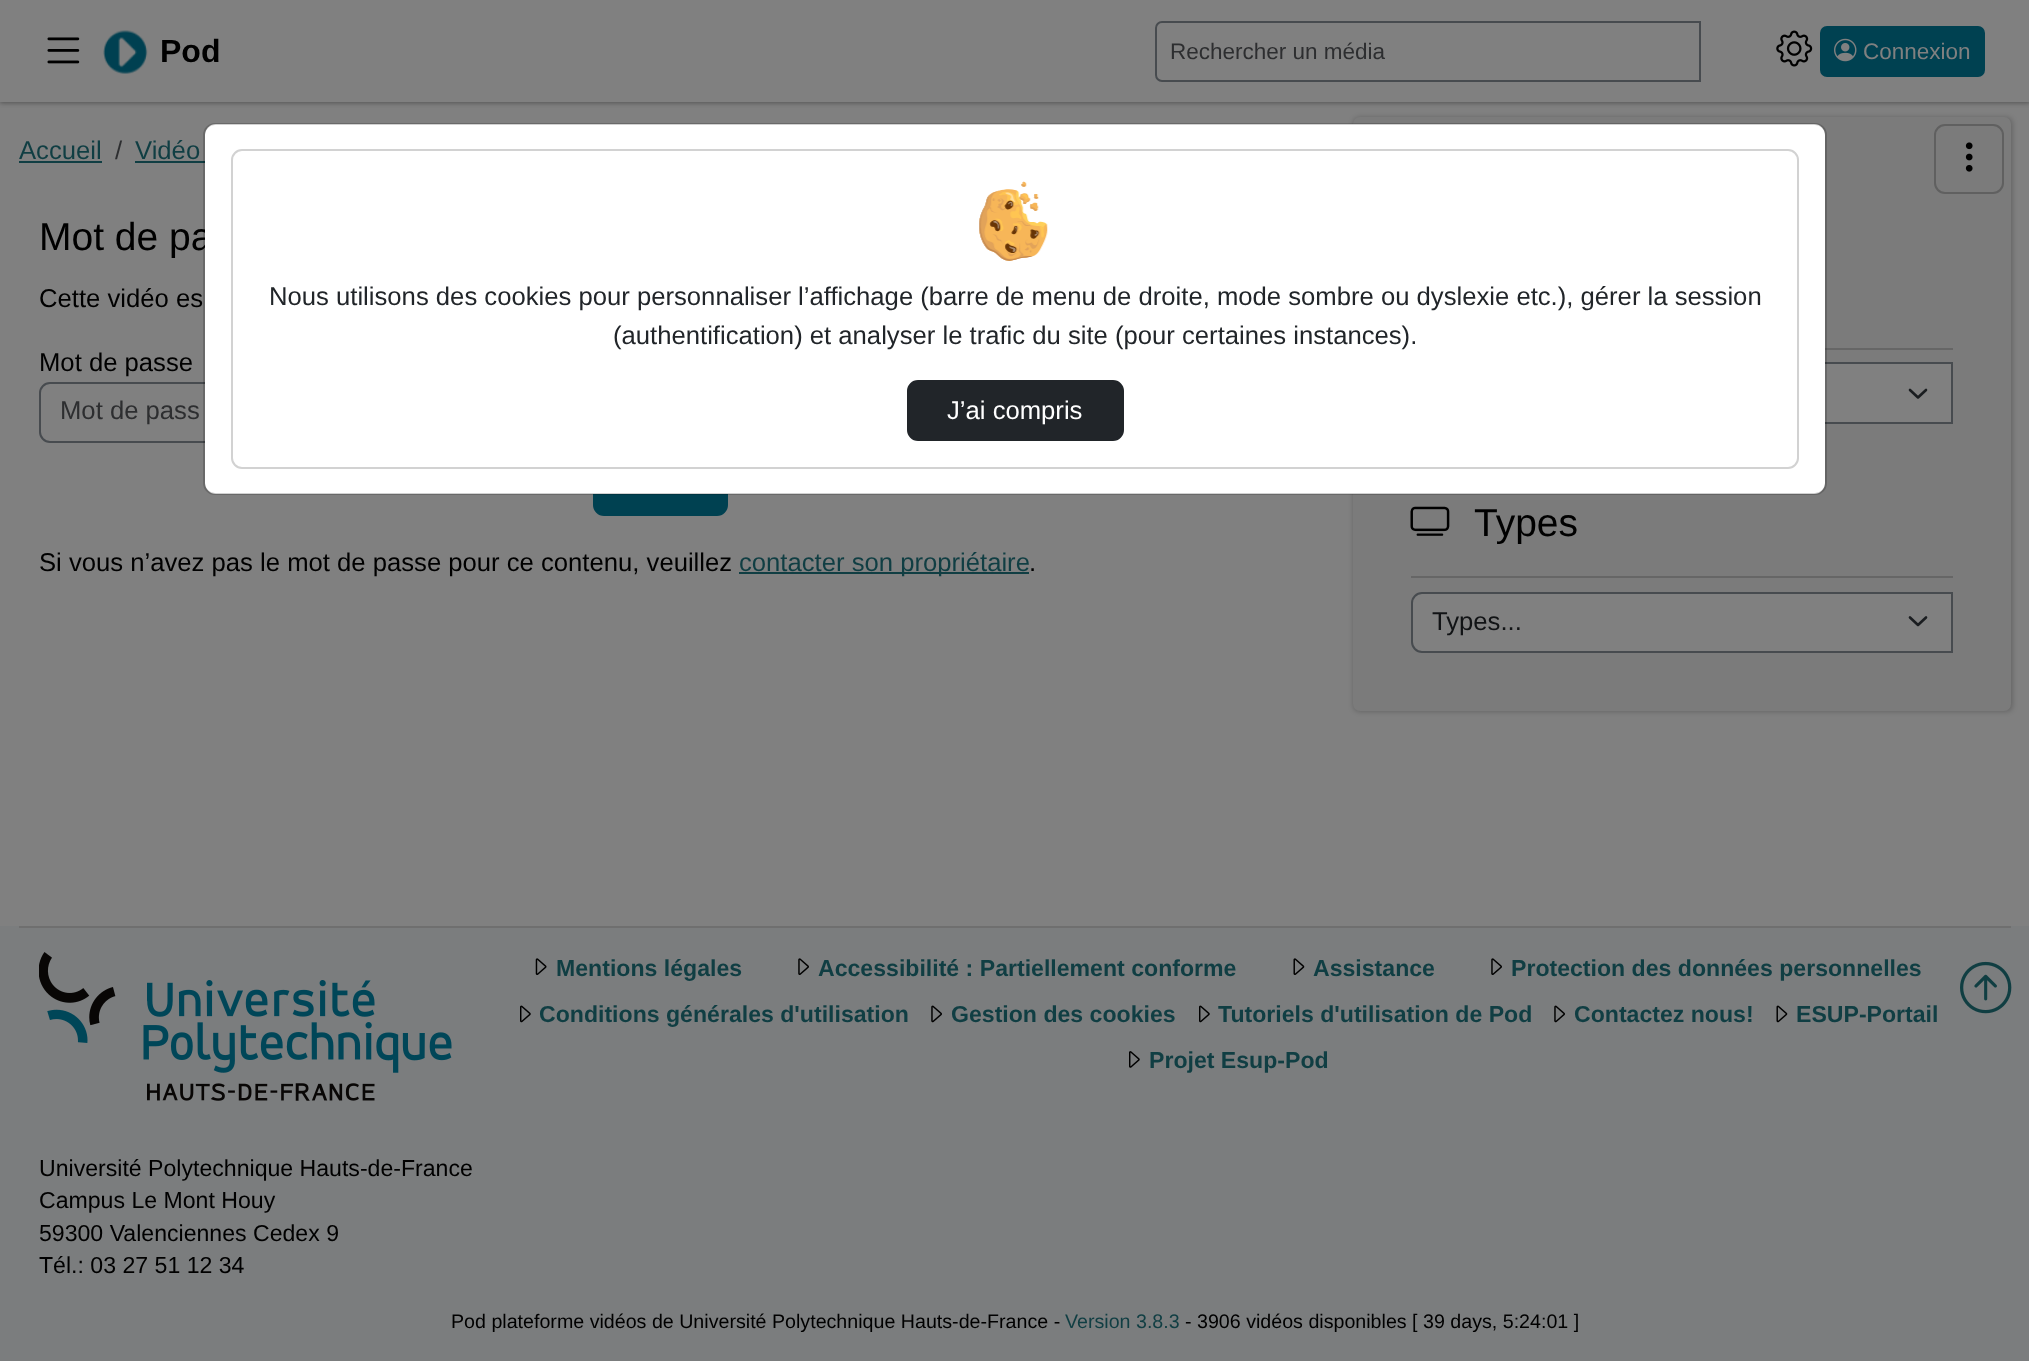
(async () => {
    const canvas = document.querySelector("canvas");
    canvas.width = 2029;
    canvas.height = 1361;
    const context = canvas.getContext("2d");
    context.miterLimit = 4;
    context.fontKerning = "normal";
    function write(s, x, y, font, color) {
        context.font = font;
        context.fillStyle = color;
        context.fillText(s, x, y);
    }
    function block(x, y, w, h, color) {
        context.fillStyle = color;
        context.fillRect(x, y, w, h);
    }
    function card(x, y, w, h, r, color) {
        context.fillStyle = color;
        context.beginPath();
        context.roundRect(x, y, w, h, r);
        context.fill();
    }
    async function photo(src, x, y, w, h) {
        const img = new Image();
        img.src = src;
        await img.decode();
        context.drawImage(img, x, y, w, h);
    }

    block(0, 0, 2029, 1361, "rgb(128, 128, 128)");
    context.fillStyle = "rgba(0, 0, 0, 0.24)";
    context.filter = "blur(2px)";
    context.beginPath();
    context.rect(0, 2, 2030, 101);
    context.fill();
    context.filter = "none";
    context.fillStyle = "rgba(0, 0, 0, 0.12)";
    context.filter = "blur(2.5px)";
    context.beginPath();
    context.rect(0, 2, 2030, 101);
    context.fill();
    context.filter = "none";
    block(0, 0, 2029, 102, "rgb(128, 128, 128)");
    await photo("media/1.png", 47, 37, 33, 27);
    await photo("media/2.png", 103, 30, 45, 44);
    write("Pod", 160, 62, "bold 32px Liberation Sans", "rgb(0, 0, 0)");
    context.beginPath();
    context.roundRect(1156, 22, 544, 59, [6, 0, 0, 6]);
    context.strokeStyle = "rgb(71, 75, 79)";
    context.lineWidth = 2;
    context.stroke();
    write("Rechercher un média", 1170, 59, "22.5px Liberation Sans", "rgb(45, 46, 48)");
    await photo("media/3.png", 1776, 30, 37, 37);
    context.fillStyle = "rgb(0, 65, 81)";
    context.beginPath();
    context.roundRect(1821, 27, 163, 49, 6);
    context.fill();
    context.strokeStyle = "rgb(0, 65, 81)";
    context.stroke();
    await photo("media/4.png", 1834, 38, 23, 24);
    write("Connexion", 1863, 59, "22.5px Liberation Sans", "rgb(128, 128, 128)");
    write("Accueil", 19, 159, "25.67px Liberation Sans", "rgb(16, 62, 67)");
    block(19, 161, 83, 2, "rgb(16, 62, 67)");
    write("/", 115, 159, "25.67px Liberation Sans", "rgb(45, 46, 48)");
    write("Vidéo", 135, 159, "25.67px Liberation Sans", "rgb(16, 62, 67)");
    block(135, 161, 70, 2, "rgb(16, 62, 67)");
    write("Mot de pa", 39, 250, "39px Liberation Sans", "rgb(0, 0, 0)");
    write("Cette vidéo es", 39, 307, "25.67px Liberation Sans", "rgb(0, 0, 0)");
    write("Mot de passe", 39, 371, "25.67px Liberation Sans", "rgb(0, 0, 0)");
    context.beginPath();
    context.roundRect(40, 383, 1242, 59, 10);
    context.strokeStyle = "rgb(71, 75, 79)";
    context.stroke();
    write("Mot de pass", 60, 419, "25.67px Liberation Sans", "rgb(45, 46, 48)");
    context.fillStyle = "rgb(0, 65, 81)";
    context.beginPath();
    context.roundRect(594, 456, 133, 59, 10);
    context.fill();
    context.strokeStyle = "rgb(0, 65, 81)";
    context.stroke();
    write("Si vous n’avez pas le mot de passe pour ce contenu, veuillez", 39, 571, "25.67px Liberation Sans", "rgb(0, 0, 0)");
    block(739, 572, 290, 2, "rgb(16, 62, 67)");
    write("contacter son propriétaire", 739, 571, "25.67px Liberation Sans", "rgb(16, 62, 67)");
    write(".", 1029, 571, "25.67px Liberation Sans", "rgb(0, 0, 0)");
    context.fillStyle = "rgba(0, 0, 0, 0.2)";
    context.filter = "blur(2.5px)";
    context.beginPath();
    context.roundRect(1353, 117, 660, 595, 7);
    context.fill();
    context.filter = "none";
    card(1353, 117, 658, 594, 7, "rgb(123, 123, 123)");
    block(1825, 348, 128, 2, "rgb(102, 102, 102)");
    block(1825, 364, 126, 58, "rgb(128, 128, 128)");
    context.beginPath();
    context.moveTo(1910, 390);
    context.lineTo(1918, 397.5);
    context.lineTo(1926, 390);
    context.strokeStyle = "rgb(26, 29, 32)";
    context.lineWidth = 2.6;
    context.lineCap = "round";
    context.lineJoin = "round";
    context.stroke();
    context.strokeStyle = "rgb(71, 75, 79)";
    context.lineWidth = 2;
    context.lineJoin = "miter";
    context.strokeRect(1412, 363, 540, 60);
    await photo("media/5.png", 1410, 506, 40, 30);
    write("Types", 1474, 536, "39px Liberation Sans", "rgb(0, 0, 0)");
    block(1411, 576, 542, 2, "rgb(102, 102, 102)");
    context.fillStyle = "rgb(128, 128, 128)";
    context.beginPath();
    context.roundRect(1411, 592, 542, 61, [11, 0, 0, 11]);
    context.fill();
    context.beginPath();
    context.moveTo(1910, 617.5);
    context.lineTo(1918, 625);
    context.lineTo(1926, 617.5);
    context.strokeStyle = "rgb(26, 29, 32)";
    context.lineWidth = 2.6;
    context.lineJoin = "round";
    context.stroke();
    context.beginPath();
    context.roundRect(1412, 593, 540, 59, [10, 0, 0, 10]);
    context.strokeStyle = "rgb(71, 75, 79)";
    context.lineWidth = 2;
    context.lineJoin = "miter";
    context.stroke();
    write("Types...", 1432, 630, "25.67px Liberation Sans", "rgb(17, 19, 21)");
    context.beginPath();
    context.roundRect(1935, 125, 68, 68, 10);
    context.strokeStyle = "rgb(96, 96, 96)";
    context.stroke();
    await photo("media/6.png", 1965, 142, 8, 30);
    card(205, 124, 1620, 370, 11, "rgb(255, 255, 255)");
    context.beginPath();
    context.roundRect(204, 124, 1622, 370, 11);
    context.strokeStyle = "rgba(0, 0, 0, 0.18)";
    context.stroke();
    context.beginPath();
    context.roundRect(232, 150, 1566, 318, 10);
    context.strokeStyle = "rgb(210, 210, 210)";
    context.stroke();
    await photo("media/7.png", 979, 181, 69, 80);
    write("Nous utilisons des cookies pour personnaliser l’affichage (barre de menu de droite, mode sombre ou dyslexie etc.), gérer la session", 269, 305, "25.67px Liberation Sans", "rgb(33, 37, 41)");
    write("(authentification) et analyser le trafic du site (pour certaines instances).", 613, 344, "25.67px Liberation Sans", "rgb(33, 37, 41)");
    context.beginPath();
    context.roundRect(908, 381, 215, 59, 10);
    context.fill();
    context.strokeStyle = "rgb(33, 37, 41)";
    context.stroke();
    write("J’ai compris", 947, 419, "25.67px Liberation Sans", "rgb(255, 255, 255)");
    block(0, 926, 2029, 435, "rgb(123, 125, 126)");
    block(19, 926, 1992, 2, "rgb(111, 111, 111)");
    await photo("media/8.png", 535, 958, 12, 17);
    write("Mentions légales", 556, 976, "bold 23.1px Liberation Sans", "rgb(16, 62, 67)");
    await photo("media/9.png", 798, 958, 11, 17);
    write("Accessibilité : Partiellement conforme", 818, 976, "bold 23.1px Liberation Sans", "rgb(16, 62, 67)");
    await photo("media/10.png", 1293, 958, 12, 17);
    write("Assistance", 1313, 976, "bold 23.1px Liberation Sans", "rgb(16, 62, 67)");
    await photo("media/9.png", 1491, 958, 11, 17);
    write("Protection des données personnelles", 1511, 976, "bold 23.1px Liberation Sans", "rgb(16, 62, 67)");
    await photo("media/11.png", 520, 1005, 11, 18);
    write("Conditions générales d'utilisation", 539, 1022, "bold 23.1px Liberation Sans", "rgb(16, 62, 67)");
    await photo("media/12.png", 931, 1005, 11, 18);
    write("Gestion des cookies", 951, 1022, "bold 23.1px Liberation Sans", "rgb(16, 62, 67)");
    await photo("media/11.png", 1199, 1005, 11, 18);
    write("Tutoriels d'utilisation de Pod", 1218, 1022, "bold 23.1px Liberation Sans", "rgb(16, 62, 67)");
    await photo("media/12.png", 1554, 1005, 11, 18);
    write("Contactez nous!", 1574, 1022, "bold 23.1px Liberation Sans", "rgb(16, 62, 67)");
    await photo("media/13.png", 1776, 1005, 12, 18);
    write("ESUP-Portail", 1796, 1022, "bold 23.1px Liberation Sans", "rgb(16, 62, 67)");
    await photo("media/14.png", 1129, 1051, 11, 17);
    write("Projet Esup-Pod", 1149, 1068, "bold 23.1px Liberation Sans", "rgb(16, 62, 67)");
    await photo("media/15.png", 39, 952, 413, 149);
    write("Université Polytechnique Hauts-de-France", 39, 1176, "23.1px Liberation Sans", "rgb(0, 0, 0)");
    write("Campus Le Mont Houy", 39, 1208, "23.1px Liberation Sans", "rgb(0, 0, 0)");
    write("59300 Valenciennes Cedex 9", 39, 1241, "23.1px Liberation Sans", "rgb(0, 0, 0)");
    write("Tél.: 03 27 51 12 34", 39, 1273, "23.1px Liberation Sans", "rgb(0, 0, 0)");
    await photo("media/16.png", 1960, 961, 52, 53);
    write("Pod plateforme vidéos de Université Polytechnique Hauts-de-France -", 451, 1328, "19.65px Liberation Sans", "rgb(0, 0, 0)");
    write("Version 3.8.3", 1065, 1328, "19.65px Liberation Sans", "rgb(16, 62, 67)");
    write("- 3906 vidéos disponibles [ 39 days, 5:24:01 ]", 1185, 1328, "19.65px Liberation Sans", "rgb(0, 0, 0)");
})();
